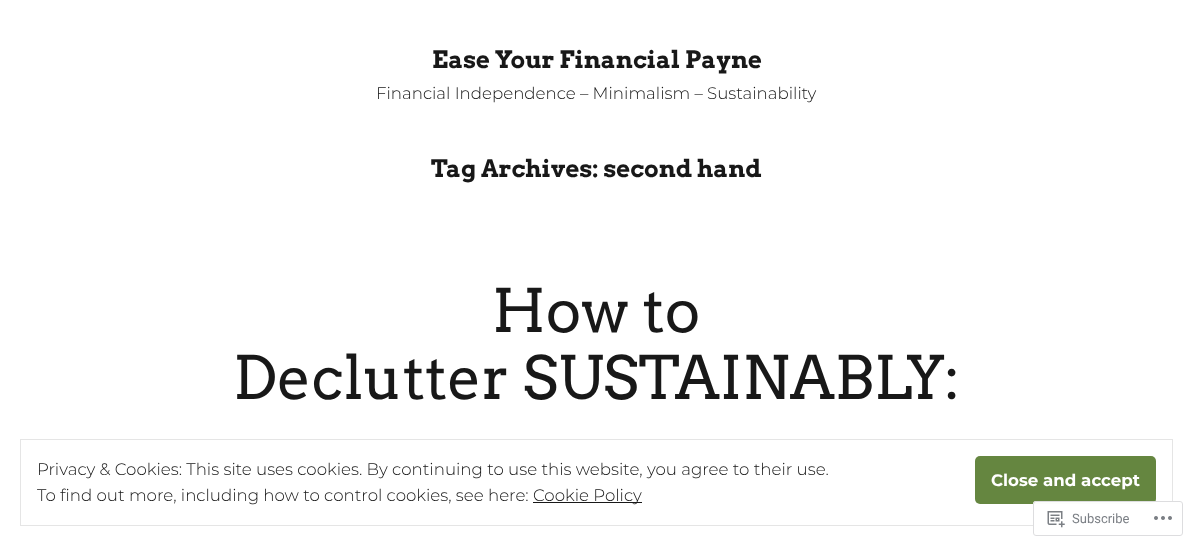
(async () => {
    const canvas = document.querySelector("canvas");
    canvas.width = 1193;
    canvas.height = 546;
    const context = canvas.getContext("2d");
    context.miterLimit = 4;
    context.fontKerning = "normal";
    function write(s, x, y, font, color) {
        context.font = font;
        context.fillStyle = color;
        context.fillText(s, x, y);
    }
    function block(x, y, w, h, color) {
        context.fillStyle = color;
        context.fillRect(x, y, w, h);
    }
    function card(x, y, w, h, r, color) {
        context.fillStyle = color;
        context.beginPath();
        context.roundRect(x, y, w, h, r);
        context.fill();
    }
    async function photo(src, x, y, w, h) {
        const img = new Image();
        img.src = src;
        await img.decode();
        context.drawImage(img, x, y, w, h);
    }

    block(0, 0, 1193, 546, "rgb(255, 255, 255)");
    write("Ease Your Financial Payne", 432, 68, "bold 24px Arvo", "rgb(24, 24, 24)");
    write("Financial Independence – Minimalism – Sustainability", 376, 99, "300 16.65px Montserrat", "rgb(24, 24, 24)");
    write("Tag Archives: second hand", 431, 177, "bold 24px Arvo", "rgb(24, 24, 24)");
    write("How to", 492, 332, "59.75px Arvo", "rgb(24, 24, 24)");
    write("Declutter SUSTAINABLY:", 233, 399, "59.75px Arvo", "rgb(24, 24, 24)");
    context.strokeStyle = "rgb(229, 229, 229)";
    context.strokeRect(20.5, 439.5, 1152, 86);
    write("Privacy & Cookies: This site uses cookies. By continuing to use this website, you agree to their use.", 37, 475, "300 16.65px Montserrat", "rgb(24, 24, 24)");
    card(975, 456, 181, 48, 5, "rgb(101, 134, 64)");
    write("Close and accept", 991, 486, "bold 16.65px Montserrat", "rgb(255, 255, 255)");
    write("To find out more, including how to control cookies, see here:", 37, 501, "300 16.65px Montserrat", "rgb(24, 24, 24)");
    block(533, 502, 109, 1, "rgb(24, 24, 24)");
    write("Cookie Policy", 533, 501, "300 16.65px Montserrat", "rgb(24, 24, 24)");
    card(1033, 501, 150, 35, 3, "rgba(255, 255, 255, 0.98)");
    context.beginPath();
    context.roundRect(1033.5, 501.5, 149, 34, 2.5);
    context.strokeStyle = "rgba(220, 220, 222, 0.98)";
    context.stroke();
    await photo("media/1.png", 1047, 511, 18, 17);
    write("Subscribe", 1072, 523, "13px Roboto", "rgb(123, 127, 133)");
    await photo("media/2.png", 1154, 516, 18, 4);
})();
